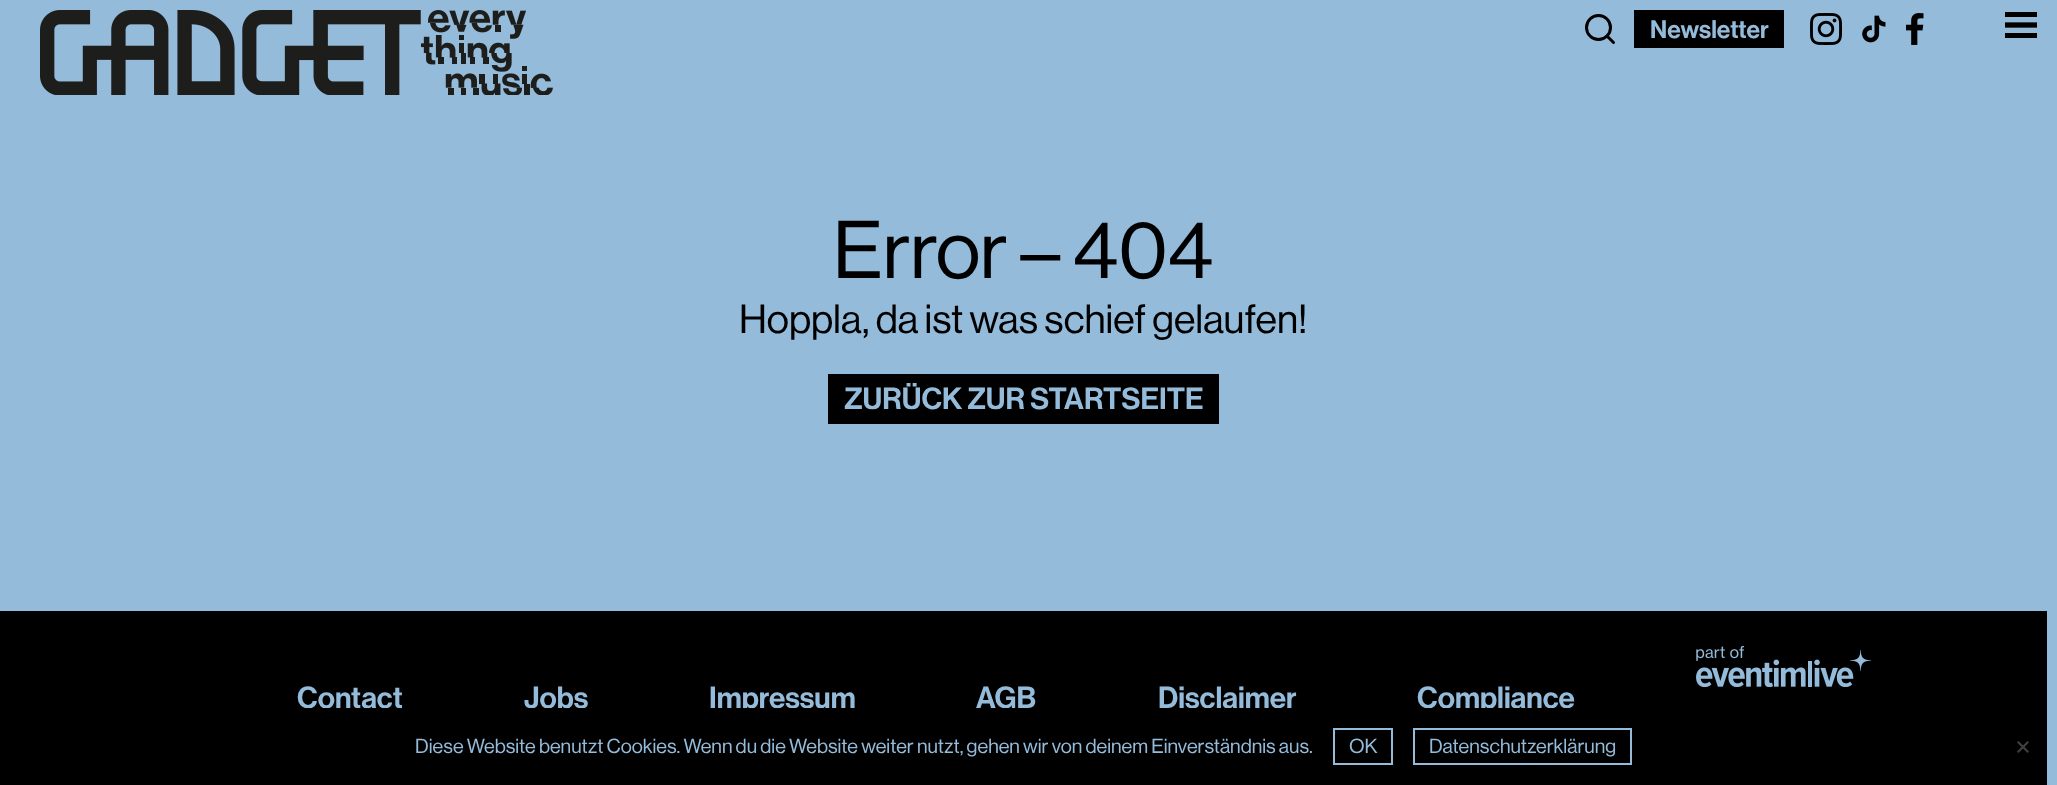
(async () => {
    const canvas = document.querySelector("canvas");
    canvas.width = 2057;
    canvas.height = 785;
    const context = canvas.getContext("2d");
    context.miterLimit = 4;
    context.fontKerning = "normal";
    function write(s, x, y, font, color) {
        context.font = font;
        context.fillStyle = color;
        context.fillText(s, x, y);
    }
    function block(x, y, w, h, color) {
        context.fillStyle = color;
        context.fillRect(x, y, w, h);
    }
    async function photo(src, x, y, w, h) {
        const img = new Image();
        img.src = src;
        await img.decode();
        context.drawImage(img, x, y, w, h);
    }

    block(0, 0, 2057, 785, "rgb(148, 187, 218)");
    await photo("media/1.png", 40, 10, 381, 85);
    await photo("media/2.png", 421, 10, 132, 85);
    context.beginPath();
    context.arc(1598.5, 27.5, 12, 0, Math.PI * 2);
    context.strokeStyle = "rgb(0, 0, 0)";
    context.lineWidth = 3;
    context.stroke();
    context.beginPath();
    context.moveTo(1613.5, 42.5);
    context.lineTo(1607, 36);
    context.lineCap = "round";
    context.lineJoin = "round";
    context.stroke();
    block(1634, 10, 150, 38, "rgb(0, 0, 0)");
    write("Newsletter", 1650, 38, "500 25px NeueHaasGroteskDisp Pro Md", "rgb(148, 187, 218)");
    await photo("media/3.png", 1810, 13, 32, 32);
    await photo("media/4.png", 1862, 15, 24, 28);
    await photo("media/5.png", 1906, 13, 18, 32);
    block(2005, 12, 32, 5, "rgb(0, 0, 0)");
    context.beginPath();
    context.moveTo(2005, 25);
    context.lineTo(2037, 25);
    context.lineWidth = 5.3;
    context.lineCap = "butt";
    context.lineJoin = "miter";
    context.stroke();
    block(2005, 33, 32, 5, "rgb(0, 0, 0)");
    write("Error – 404", 833, 278, "80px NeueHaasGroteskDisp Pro", "rgb(0, 0, 0)");
    write("Hoppla, da ist was schief gelaufen!", 739, 333, "40px NeueHaasGroteskDisp Pro", "rgb(0, 0, 0)");
    block(828, 374, 391, 50, "rgb(0, 0, 0)");
    write("ZURÜCK ZUR STARTSEITE", 844, 409, "500 30px NeueHaasGroteskDisp Pro Md", "rgb(148, 187, 218)");
    block(0, 611, 2047, 97, "rgb(0, 0, 0)");
    write("Contact", 297, 708, "500 30px NeueHaasGroteskDisp Pro Md", "rgb(148, 187, 218)");
    write("Jobs", 524, 708, "500 30px NeueHaasGroteskDisp Pro Md", "rgb(148, 187, 218)");
    write("Impressum", 709, 708, "500 30px NeueHaasGroteskDisp Pro Md", "rgb(148, 187, 218)");
    write("AGB", 976, 708, "500 30px NeueHaasGroteskDisp Pro Md", "rgb(148, 187, 218)");
    write("Disclaimer", 1158, 708, "500 30px NeueHaasGroteskDisp Pro Md", "rgb(148, 187, 218)");
    write("Compliance", 1417, 708, "500 30px NeueHaasGroteskDisp Pro Md", "rgb(148, 187, 218)");
    block(0, 708, 2047, 77, "rgb(0, 0, 0)");
    write("Diese Website benutzt Cookies. Wenn du die Website weiter nutzt, gehen wir von deinem Einverständnis aus.", 415, 753, "20px NeueHaasGroteskDisp Pro", "rgb(148, 187, 218)");
    context.strokeStyle = "rgb(148, 187, 218)";
    context.lineWidth = 2;
    context.strokeRect(1334, 729, 58, 35);
    write("OK", 1349, 753, "20px NeueHaasGroteskDisp Pro", "rgb(148, 187, 218)");
    context.strokeRect(1414, 729, 217, 35);
    write("Datenschutzerklärung", 1429, 753, "20px NeueHaasGroteskDisp Pro", "rgb(148, 187, 218)");
    context.fillStyle = "rgb(64, 64, 64)";
    context.beginPath();
    context.moveTo(2027.5, 741);
    context.lineTo(2029, 742.5);
    context.lineTo(2018.5, 753);
    context.lineTo(2017, 751.5);
    context.closePath();
    context.fill();
    context.beginPath();
    context.moveTo(2017, 742.5);
    context.lineTo(2018.5, 741);
    context.lineTo(2029, 751.5);
    context.lineTo(2027.5, 753);
    context.closePath();
    context.fill();
    await photo("media/6.png", 1696, 646, 175, 41);
})();
